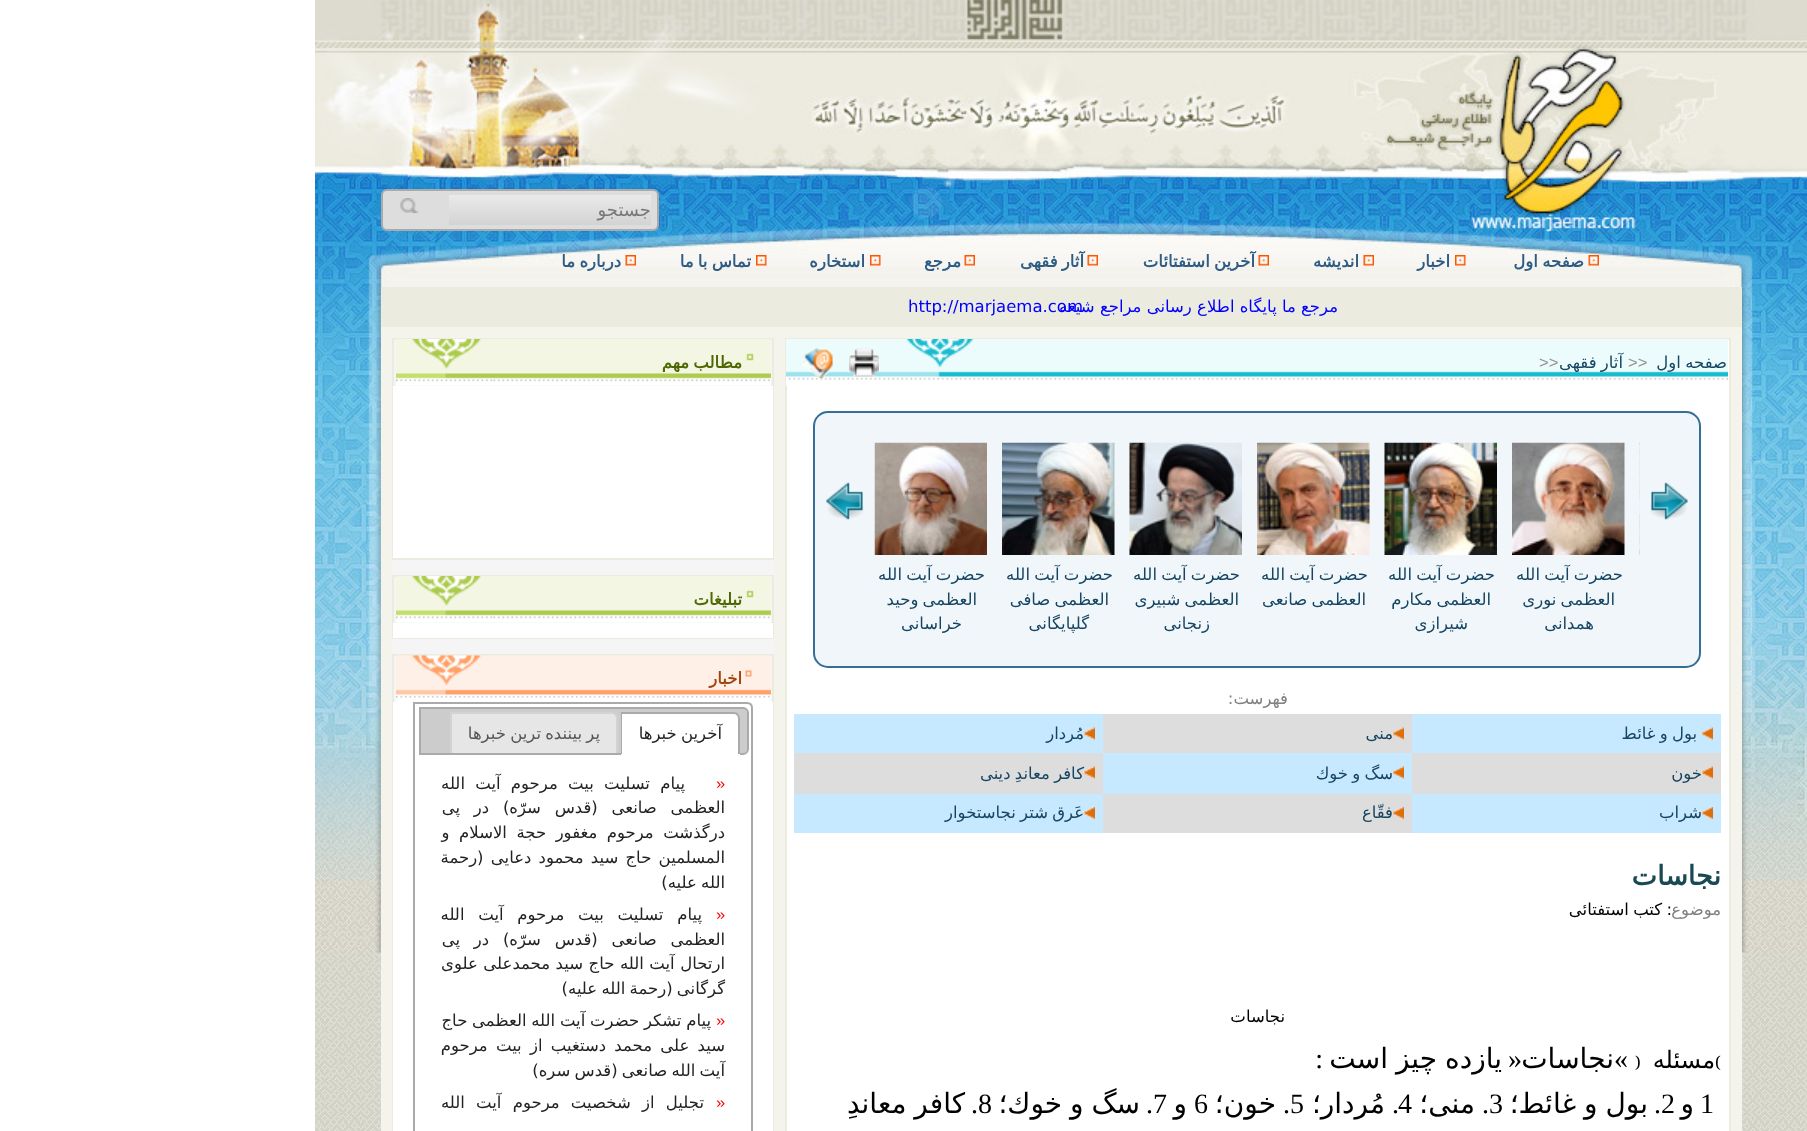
(async () => {
    const canvas = document.querySelector("canvas");
    canvas.width = 1807;
    canvas.height = 1131;
    const context = canvas.getContext("2d");
    context.miterLimit = 4;
    context.fontKerning = "normal";
    function write(s, x, y, font, color) {
        context.font = font;
        context.fillStyle = color;
        context.fillText(s, x, y);
    }
    function block(x, y, w, h, color) {
        context.fillStyle = color;
        context.fillRect(x, y, w, h);
    }
    async function photo(src, x, y, w, h) {
        const img = new Image();
        img.src = src;
        await img.decode();
        context.drawImage(img, x, y, w, h);
    }
    let gradient;

    block(0, 0, 1807, 1131, "rgb(255, 255, 255)");
    await photo("media/1.png", 315, 952, 1492, 179);
    await photo("media/2.png", 315, 0, 1492, 953);
    context.fillStyle = "rgb(221, 221, 221)";
    context.beginPath();
    context.roundRect(382, 190, 276, 40, 5);
    context.fill();
    context.strokeStyle = "rgb(170, 170, 170)";
    context.lineWidth = 2;
    context.stroke();
    gradient = context.createLinearGradient(449, 195, 449, 225);
    gradient.addColorStop(0, "rgb(196, 196, 196)");
    gradient.addColorStop(0, "rgb(234, 234, 234)");
    gradient.addColorStop(1, "rgb(211, 211, 211)");
    context.fillStyle = gradient;
    context.fillRect(449, 195, 202, 30);
    context.direction = "rtl";
    write("جستجو", 651, 216, "18px DejaVu Sans", "rgb(119, 119, 119)");
    await photo("media/3.png", 400, 198, 19, 15);
    await photo("media/4.png", 1588, 255, 11, 11);
    context.wordSpacing = "-1px";
    write("صفحه اول", 1584, 267, "bold 16.5px DejaVu Sans", "rgb(46, 92, 132)");
    await photo("media/5.png", 1455, 255, 11, 11);
    context.wordSpacing = "0px";
    write("اخبار", 1450, 267, "bold 16.5px DejaVu Sans", "rgb(46, 92, 132)");
    await photo("media/6.png", 1363, 255, 11, 11);
    write("اندیشه", 1359, 267, "bold 16.5px DejaVu Sans", "rgb(46, 92, 132)");
    await photo("media/7.png", 1258, 255, 11, 11);
    context.wordSpacing = "-1px";
    write("آخرین استفتائات", 1255, 267, "bold 16.5px DejaVu Sans", "rgb(46, 92, 132)");
    await photo("media/7.png", 1087, 255, 11, 11);
    write("آثار فقهی", 1084, 267, "bold 16.5px DejaVu Sans", "rgb(46, 92, 132)");
    await photo("media/7.png", 964, 255, 11, 11);
    context.wordSpacing = "0px";
    write("مرجع", 961, 267, "bold 16.5px DejaVu Sans", "rgb(46, 92, 132)");
    await photo("media/5.png", 870, 255, 11, 11);
    write("استخاره", 865, 267, "bold 16.5px DejaVu Sans", "rgb(46, 92, 132)");
    await photo("media/8.png", 756, 255, 11, 11);
    context.wordSpacing = "-1px";
    write("تماس با ما", 751, 267, "bold 16.5px DejaVu Sans", "rgb(46, 92, 132)");
    await photo("media/6.png", 625, 255, 11, 11);
    write("درباره ما", 621, 267, "bold 16.5px DejaVu Sans", "rgb(46, 92, 132)");
    block(381, 327, 1361, 804, "rgb(244, 243, 236)");
    block(381, 287, 1361, 40, "rgb(236, 235, 223)");
    context.wordSpacing = "0px";
    context.direction = "ltr";
    write("http://marjaema.com", 908, 312, "16.5px DejaVu Sans", "rgb(0, 0, 255)");
    context.direction = "rtl";
    write("مرجع ما پایگاه اطلاع رسانی مراجع شیعه", 1338, 312, "16.5px DejaVu Sans", "rgb(0, 0, 255)");
    context.fillStyle = "rgb(255, 255, 255)";
    context.beginPath();
    context.rect(786, 339, 944, 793);
    context.fill();
    context.strokeStyle = "rgb(236, 235, 223)";
    context.stroke();
    await photo("media/9.png", 786, 339, 942, 47);
    context.wordSpacing = "-1px";
    write("صفحه اول", 1727, 368, "16.5px DejaVu Sans", "rgb(21, 69, 98)");
    context.wordSpacing = "0px";
    context.direction = "ltr";
    write(">>", 1628, 368, "16.5px Liberation Sans", "rgb(148, 148, 142)");
    context.wordSpacing = "-1px";
    context.direction = "rtl";
    write("آثار فقهی", 1623, 368, "16.5px DejaVu Sans", "rgb(21, 69, 98)");
    context.wordSpacing = "0px";
    context.direction = "ltr";
    write(">>", 1539, 368, "16.5px Liberation Sans", "rgb(148, 148, 142)");
    await photo("media/10.png", 849, 348, 30, 29);
    await photo("media/11.png", 802, 348, 31, 30);
    context.fillStyle = "rgb(240, 246, 249)";
    context.beginPath();
    context.roundRect(814, 412, 886, 255, 14);
    context.fill();
    context.strokeStyle = "rgb(52, 111, 151)";
    context.stroke();
    await photo("media/12.png", 1650, 482, 38, 38);
    await photo("media/13.png", 826, 482, 38, 38);
    await photo("media/14.png", 1639, 442, 1, 113);
    await photo("media/15.png", 1512, 442, 113, 113);
    context.wordSpacing = "-1px";
    context.direction = "rtl";
    write("حضرت آیت الله", 1623, 580, "16.5px DejaVu Sans", "rgb(21, 69, 98)");
    write("العظمی نوری", 1615, 605, "16.5px DejaVu Sans", "rgb(21, 69, 98)");
    context.wordSpacing = "0px";
    write("همدانی", 1594, 629, "16.5px DejaVu Sans", "rgb(21, 69, 98)");
    await photo("media/16.png", 1384, 442, 113, 113);
    context.wordSpacing = "-1px";
    write("حضرت آیت الله", 1495, 580, "16.5px DejaVu Sans", "rgb(21, 69, 98)");
    write("العظمی مکارم", 1491, 605, "16.5px DejaVu Sans", "rgb(21, 69, 98)");
    context.wordSpacing = "0px";
    write("شیرازی", 1468, 629, "16.5px DejaVu Sans", "rgb(21, 69, 98)");
    await photo("media/17.png", 1257, 442, 113, 113);
    context.wordSpacing = "-1px";
    write("حضرت آیت الله", 1368, 580, "16.5px DejaVu Sans", "rgb(21, 69, 98)");
    write("العظمی صانعی", 1366, 605, "16.5px DejaVu Sans", "rgb(21, 69, 98)");
    await photo("media/18.png", 1129, 442, 113, 113);
    write("حضرت آیت الله", 1240, 580, "16.5px DejaVu Sans", "rgb(21, 69, 98)");
    write("العظمی شبیری", 1239, 605, "16.5px DejaVu Sans", "rgb(21, 69, 98)");
    context.wordSpacing = "0px";
    write("زنجانی", 1210, 629, "16.5px DejaVu Sans", "rgb(21, 69, 98)");
    await photo("media/19.png", 1002, 442, 113, 113);
    context.wordSpacing = "-1px";
    write("حضرت آیت الله", 1113, 580, "16.5px DejaVu Sans", "rgb(21, 69, 98)");
    write("العظمی صافی", 1109, 605, "16.5px DejaVu Sans", "rgb(21, 69, 98)");
    context.wordSpacing = "0px";
    write("گلپایگانی", 1089, 629, "16.5px DejaVu Sans", "rgb(21, 69, 98)");
    await photo("media/20.png", 874, 442, 113, 113);
    context.wordSpacing = "-1px";
    write("حضرت آیت الله", 985, 580, "16.5px DejaVu Sans", "rgb(21, 69, 98)");
    write("العظمی وحید", 977, 605, "16.5px DejaVu Sans", "rgb(21, 69, 98)");
    context.wordSpacing = "0px";
    write("خراسانی", 962, 629, "16.5px DejaVu Sans", "rgb(21, 69, 98)");
    write("فهرست:", 1288, 704, "16.5px DejaVu Sans", "rgb(128, 128, 128)");
    block(794, 714, 927, 119, "rgb(221, 221, 221)");
    block(1412, 714, 309, 39, "rgb(199, 233, 255)");
    await photo("media/21.png", 1701, 727, 12, 13);
    context.wordSpacing = "-1px";
    write("بول و غائط", 1697, 739, "16.5px DejaVu Sans", "rgb(21, 69, 98)");
    await photo("media/22.png", 1392, 727, 12, 13);
    context.wordSpacing = "0px";
    write("منى", 1393, 739, "16.5px DejaVu Sans", "rgb(21, 69, 98)");
    block(794, 714, 309, 39, "rgb(199, 233, 255)");
    await photo("media/23.png", 1083, 727, 12, 13);
    write("مُردار", 1084, 739, "16.5px DejaVu Sans", "rgb(21, 69, 98)");
    await photo("media/22.png", 1701, 766, 12, 13);
    write("خون", 1702, 779, "16.5px DejaVu Sans", "rgb(21, 69, 98)");
    block(1103, 753, 309, 41, "rgb(199, 233, 255)");
    await photo("media/21.png", 1392, 766, 12, 13);
    context.wordSpacing = "-1px";
    write("سگ و خوك", 1393, 779, "16.5px DejaVu Sans", "rgb(21, 69, 98)");
    await photo("media/24.png", 1083, 766, 12, 13);
    write("كافر معاندِ دينى", 1084, 779, "16.5px DejaVu Sans", "rgb(21, 69, 98)");
    block(1412, 794, 309, 39, "rgb(199, 233, 255)");
    await photo("media/25.png", 1701, 807, 12, 12);
    context.wordSpacing = "0px";
    write("شراب", 1702, 818, "16.5px DejaVu Sans", "rgb(21, 69, 98)");
    await photo("media/26.png", 1392, 807, 12, 12);
    write("فقّاع", 1393, 818, "16.5px DejaVu Sans", "rgb(21, 69, 98)");
    block(794, 794, 309, 39, "rgb(199, 233, 255)");
    await photo("media/27.png", 1083, 807, 12, 12);
    context.wordSpacing = "-1px";
    write("عَرق شتر نجاستخوار", 1084, 818, "16.5px DejaVu Sans", "rgb(21, 69, 98)");
    context.wordSpacing = "0px";
    write("نجاسات", 1721, 885, "bold 27px DejaVu Sans", "rgb(25, 73, 83)");
    write("موضوع", 1721, 915, "16.5px DejaVu Sans", "rgb(128, 128, 128)");
    context.wordSpacing = "-1px";
    write(": کتب استفتائی", 1672, 915, "16.5px DejaVu Sans", "rgb(0, 0, 0)");
    context.wordSpacing = "0px";
    write("نجاسات", 1285, 1022, "16.5px DejaVu Sans", "rgb(0, 0, 0)");
    context.direction = "ltr";
    write("(", 1715, 1068, "16.5px Noto Serif", "rgb(0, 0, 0)");
    context.direction = "rtl";
    write("مسئله", 1715, 1068, "24px DejaVu Sans", "rgb(0, 0, 0)");
    context.direction = "ltr";
    write(")", 1635, 1068, "16.5px Noto Serif", "rgb(0, 0, 0)");
    write("«", 1614, 1068, "28px Liberation Serif", "rgb(0, 0, 0)");
    context.direction = "rtl";
    write("نجاسات", 1614, 1068, "28px DejaVu Sans", "rgb(0, 0, 0)");
    context.direction = "ltr";
    write("»", 1508, 1068, "28px Liberation Serif", "rgb(0, 0, 0)");
    context.wordSpacing = "-1px";
    context.direction = "rtl";
    write("يازده چيز است", 1502, 1068, "28px DejaVu Sans", "rgb(0, 0, 0)");
    context.wordSpacing = "0px";
    write(":", 1323, 1068, "28px Liberation Serif", "rgb(0, 0, 0)");
    context.direction = "ltr";
    write("1", 1700, 1113, "28px Liberation Serif", "rgb(0, 0, 0)");
    context.direction = "rtl";
    write("و", 1694, 1113, "28px DejaVu Sans", "rgb(0, 0, 0)");
    context.direction = "ltr";
    write("2", 1661, 1113, "28px Liberation Serif", "rgb(0, 0, 0)");
    context.direction = "rtl";
    write(".", 1661, 1113, "28px Liberation Serif", "rgb(0, 0, 0)");
    context.wordSpacing = "-1px";
    write("بول و غائط؛", 1648, 1113, "28px DejaVu Sans", "rgb(0, 0, 0)");
    context.wordSpacing = "0px";
    context.direction = "ltr";
    write("3", 1489, 1113, "28px Liberation Serif", "rgb(0, 0, 0)");
    context.direction = "rtl";
    write(".", 1489, 1113, "28px Liberation Serif", "rgb(0, 0, 0)");
    write("منى؛", 1475, 1113, "28px DejaVu Sans", "rgb(0, 0, 0)");
    context.direction = "ltr";
    write("4", 1398, 1113, "28px Liberation Serif", "rgb(0, 0, 0)");
    context.direction = "rtl";
    write(".", 1399, 1113, "28px Liberation Serif", "rgb(0, 0, 0)");
    write("مُردار؛", 1385, 1113, "28px DejaVu Sans", "rgb(0, 0, 0)");
    context.direction = "ltr";
    write("5", 1290, 1113, "28px Liberation Serif", "rgb(0, 0, 0)");
    context.direction = "rtl";
    write(".", 1290, 1113, "28px Liberation Serif", "rgb(0, 0, 0)");
    write("خون؛", 1276, 1113, "28px DejaVu Sans", "rgb(0, 0, 0)");
    context.direction = "ltr";
    write("6", 1194, 1113, "28px Liberation Serif", "rgb(0, 0, 0)");
    context.direction = "rtl";
    write("و", 1187, 1113, "28px DejaVu Sans", "rgb(0, 0, 0)");
    context.direction = "ltr";
    write("7", 1153, 1113, "28px Liberation Serif", "rgb(0, 0, 0)");
    context.direction = "rtl";
    write(".", 1153, 1113, "28px Liberation Serif", "rgb(0, 0, 0)");
    context.wordSpacing = "-1px";
    write("سگ و خوك؛", 1140, 1113, "28px DejaVu Sans", "rgb(0, 0, 0)");
    context.wordSpacing = "0px";
    context.direction = "ltr";
    write("8", 978, 1113, "28px Liberation Serif", "rgb(0, 0, 0)");
    context.direction = "rtl";
    write(".", 978, 1113, "28px Liberation Serif", "rgb(0, 0, 0)");
    context.wordSpacing = "-1px";
    write("كافر معاندِ", 965, 1113, "28px DejaVu Sans", "rgb(0, 0, 0)");
    block(392, 340, 382, 362, "rgb(245, 245, 245)");
    context.strokeStyle = "rgb(236, 235, 223)";
    context.strokeRect(393, 339, 380, 220);
    await photo("media/28.png", 396, 339, 375, 47);
    write("مطالب مهم", 742, 368, "bold 16.5px DejaVu Sans", "rgb(78, 103, 3)");
    block(393, 386, 380, 172, "rgb(255, 255, 255)");
    context.strokeRect(393, 576, 380, 62);
    await photo("media/28.png", 396, 576, 375, 47);
    context.wordSpacing = "0px";
    write("تبلیغات", 742, 605, "bold 16.5px DejaVu Sans", "rgb(78, 103, 3)");
    block(393, 623, 380, 15, "rgb(255, 255, 255)");
    context.strokeRect(393, 655, 380, 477);
    await photo("media/29.png", 396, 655, 375, 47);
    write("اخبار", 742, 684, "bold 16.5px DejaVu Sans", "rgb(162, 68, 11)");
    block(393, 702, 380, 429, "rgb(255, 255, 255)");
    context.beginPath();
    context.moveTo(414, 703);
    context.lineTo(747, 703);
    context.bezierCurveTo(750, 703, 752, 705, 752, 708);
    context.lineTo(752, 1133);
    context.bezierCurveTo(752, 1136, 750, 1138, 747, 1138);
    context.lineTo(414, 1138);
    context.closePath();
    context.strokeStyle = "rgb(170, 170, 170)";
    context.stroke();
    context.fillStyle = "rgb(204, 204, 204)";
    context.beginPath();
    context.roundRect(420, 708, 328, 46, [0, 5, 5, 0]);
    context.fill();
    context.stroke();
    context.fillStyle = "rgb(255, 255, 255)";
    context.beginPath();
    context.roundRect(621, 713, 119, 42, [0, 6, 0, 0]);
    context.fill();
    context.fillStyle = "rgb(170, 170, 170)";
    context.beginPath();
    context.moveTo(621, 712);
    context.lineTo(734, 712);
    context.bezierCurveTo(737, 712, 740, 715, 740, 718);
    context.lineTo(740, 754);
    context.lineTo(621, 754);
    context.closePath();
    context.moveTo(622, 714);
    context.lineTo(734, 714);
    context.bezierCurveTo(736, 714, 738, 716, 738, 718);
    context.lineTo(738, 754);
    context.lineTo(622, 754);
    context.closePath();
    context.fill("evenodd");
    context.wordSpacing = "-1px";
    write("آخرین خبرها", 722, 739, "16.5px DejaVu Sans", "rgb(34, 34, 34)");
    context.fillStyle = "rgb(230, 230, 230)";
    context.beginPath();
    context.roundRect(450, 713, 168, 40, [0, 6, 0, 0]);
    context.fill();
    context.fillStyle = "rgb(211, 211, 211)";
    context.beginPath();
    context.moveTo(450, 712);
    context.lineTo(612, 712);
    context.bezierCurveTo(615, 712, 618, 715, 618, 718);
    context.lineTo(618, 753);
    context.lineTo(450, 753);
    context.closePath();
    context.moveTo(452, 714);
    context.lineTo(612, 714);
    context.bezierCurveTo(614, 714, 616, 716, 616, 718);
    context.lineTo(616, 753);
    context.lineTo(452, 753);
    context.closePath();
    context.fill("evenodd");
    write("پر بیننده ترین خبرها", 600, 739, "16.5px DejaVu Sans", "rgb(85, 85, 85)");
    context.wordSpacing = "0px";
    context.direction = "ltr";
    write("»", 716, 789, "16.5px Liberation Sans", "rgb(255, 0, 0)");
    context.wordSpacing = "5px";
    context.direction = "rtl";
    write("پیام تسلیت بیت مرحوم آیت الله", 685, 789, "16.5px DejaVu Sans", "rgb(34, 34, 34)");
    context.wordSpacing = "8.5px";
    write("العظمی صانعی (قدس سرّه) در پی", 725, 813, "16.5px DejaVu Sans", "rgb(34, 34, 34)");
    context.wordSpacing = "4.25px";
    write("درگذشت مرحوم مغفور حجة الاسلام و", 725, 838, "16.5px DejaVu Sans", "rgb(34, 34, 34)");
    context.wordSpacing = "2px";
    write("المسلمین حاج سید محمود دعایی (رحمة", 725, 863, "16.5px DejaVu Sans", "rgb(34, 34, 34)");
    context.wordSpacing = "-1px";
    write("الله علیه)", 725, 888, "16.5px DejaVu Sans", "rgb(34, 34, 34)");
    context.wordSpacing = "0px";
    context.direction = "ltr";
    write("»", 716, 920, "16.5px Liberation Sans", "rgb(255, 0, 0)");
    context.wordSpacing = "8.5px";
    context.direction = "rtl";
    write("پیام تسلیت بیت مرحوم آیت الله", 702, 920, "16.5px DejaVu Sans", "rgb(34, 34, 34)");
    write("العظمی صانعی (قدس سرّه) در پی", 725, 945, "16.5px DejaVu Sans", "rgb(34, 34, 34)");
    context.wordSpacing = "0.25px";
    write("ارتحال آیت الله حاج سید محمدعلی علوی", 725, 969, "16.5px DejaVu Sans", "rgb(34, 34, 34)");
    context.wordSpacing = "-1px";
    write("گرگانی (رحمة الله علیه)", 725, 994, "16.5px DejaVu Sans", "rgb(34, 34, 34)");
    context.wordSpacing = "0px";
    context.direction = "ltr";
    write("»", 716, 1026, "16.5px Liberation Sans", "rgb(255, 0, 0)");
    context.wordSpacing = "-0.5px";
    context.direction = "rtl";
    write("پیام تشکر حضرت آیت الله العظمی حاج", 711, 1026, "16.5px DejaVu Sans", "rgb(34, 34, 34)");
    context.wordSpacing = "3px";
    write("سید علی محمد دستغیب از بیت مرحوم", 725, 1051, "16.5px DejaVu Sans", "rgb(34, 34, 34)");
    context.wordSpacing = "-1px";
    write("آیت الله صانعی (قدس سره)", 725, 1076, "16.5px DejaVu Sans", "rgb(34, 34, 34)");
    context.wordSpacing = "0px";
    context.direction = "ltr";
    write("»", 716, 1108, "16.5px Liberation Sans", "rgb(255, 0, 0)");
    context.wordSpacing = "6px";
    context.direction = "rtl";
    write("تجلیل از شخصیت مرحوم آیت الله", 704, 1108, "16.5px DejaVu Sans", "rgb(34, 34, 34)");
})();
